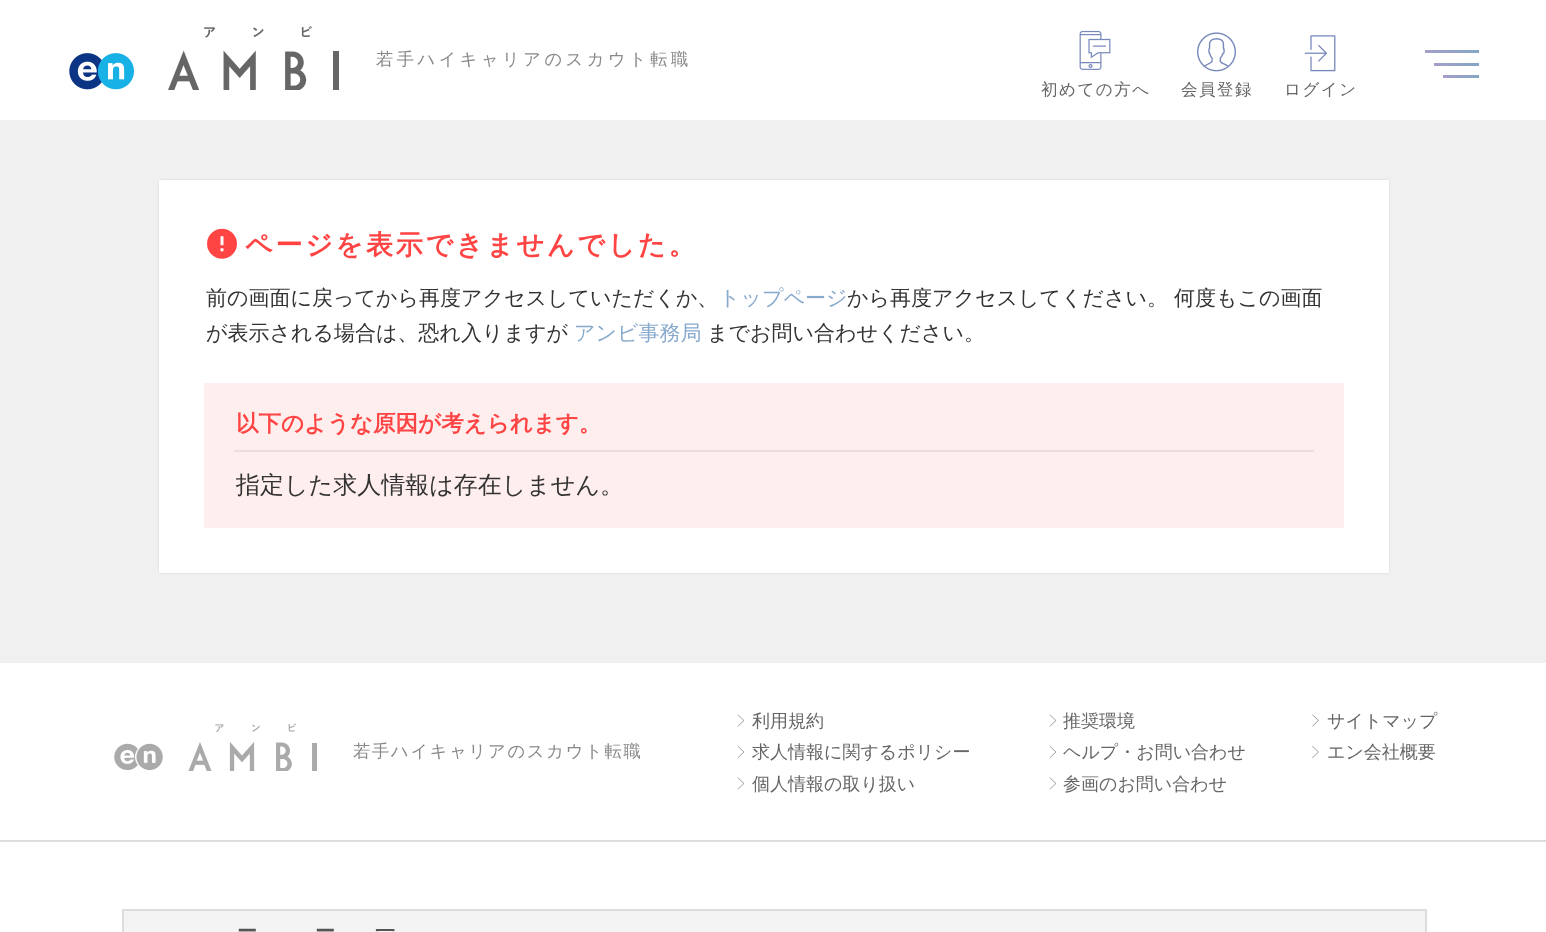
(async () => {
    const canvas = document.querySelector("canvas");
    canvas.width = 1546;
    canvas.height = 932;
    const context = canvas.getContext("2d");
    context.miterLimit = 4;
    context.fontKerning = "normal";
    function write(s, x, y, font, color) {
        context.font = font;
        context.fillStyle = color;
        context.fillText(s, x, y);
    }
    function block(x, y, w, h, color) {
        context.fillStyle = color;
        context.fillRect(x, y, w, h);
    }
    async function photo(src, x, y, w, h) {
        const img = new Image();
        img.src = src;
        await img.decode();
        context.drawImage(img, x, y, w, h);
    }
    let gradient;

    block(0, 0, 1546, 932, "rgb(240, 240, 240)");
    block(0, 0, 1546, 120, "rgb(255, 255, 255)");
    await photo("media/1.png", 69, 26, 270, 64);
    context.letterSpacing = "3.5px";
    write("若手ハイキャリアのスカウト転職", 376, 65, "500 17.25px WenQuanYi Zen Hei", "rgb(136, 136, 136)");
    gradient = context.createLinearGradient(1425, 51, 1479, 51);
    gradient.addColorStop(0, "rgb(163, 159, 201)");
    gradient.addColorStop(1, "rgb(132, 166, 196)");
    context.fillStyle = gradient;
    context.fillRect(1425, 50, 54, 3);
    gradient = context.createLinearGradient(1434, 65, 1479, 65);
    gradient.addColorStop(0, "rgb(163, 159, 201)");
    gradient.addColorStop(1, "rgb(132, 166, 196)");
    context.fillStyle = gradient;
    context.fillRect(1434, 63, 45, 3);
    gradient = context.createLinearGradient(1443, 77, 1479, 77);
    gradient.addColorStop(0, "rgb(163, 159, 201)");
    gradient.addColorStop(1, "rgb(132, 166, 196)");
    context.fillStyle = gradient;
    context.fillRect(1443, 75, 36, 3);
    await photo("media/2.png", 1079, 30, 32, 40);
    context.letterSpacing = "1.5px";
    write("初めての方へ", 1041, 95, "500 16.5px WenQuanYi Zen Hei", "rgb(102, 102, 102)");
    await photo("media/3.png", 1197, 32, 39, 40);
    write("会員登録", 1181, 95, "500 16.5px WenQuanYi Zen Hei", "rgb(102, 102, 102)");
    await photo("media/4.png", 1304, 35, 32, 37);
    write("ログイン", 1284, 95, "500 16.5px WenQuanYi Zen Hei", "rgb(102, 102, 102)");
    context.fillStyle = "rgba(0, 0, 0, 0.1)";
    context.filter = "blur(1px)";
    context.beginPath();
    context.rect(159, 180, 1230, 393);
    context.fill();
    context.filter = "none";
    block(159, 180, 1230, 393, "rgb(255, 255, 255)");
    await photo("media/5.png", 207, 228, 30, 31);
    context.letterSpacing = "2.75px";
    write("ページを表示できませんでした。", 245, 254, "bold 27px WenQuanYi Zen Hei", "rgb(255, 68, 68)");
    context.letterSpacing = "0px";
    write("前の画面に戻ってから再度アクセスしていただくか、", 206, 305, "500 21px WenQuanYi Zen Hei", "rgb(51, 51, 51)");
    write("トップページ", 719, 305, "500 21px WenQuanYi Zen Hei", "rgb(136, 170, 204)");
    write("から再度アクセスしてください。", 847, 305, "500 21px WenQuanYi Zen Hei", "rgb(51, 51, 51)");
    write("何度もこの画面", 1174, 305, "500 21px WenQuanYi Zen Hei", "rgb(51, 51, 51)");
    write("が表示される場合は、恐れ入りますが", 206, 340, "500 21px WenQuanYi Zen Hei", "rgb(51, 51, 51)");
    write("アンビ事務局", 574, 340, "500 21px WenQuanYi Zen Hei", "rgb(136, 170, 204)");
    write("までお問い合わせください。", 707, 340, "500 21px WenQuanYi Zen Hei", "rgb(51, 51, 51)");
    block(204, 383, 1140, 145, "rgb(255, 238, 238)");
    block(234, 450, 1080, 2, "rgb(238, 221, 221)");
    write("以下のような原因が考えられます。", 236, 431, "bold 22.5px WenQuanYi Zen Hei", "rgb(255, 68, 68)");
    write("指定した求人情報は存在しません。", 236, 493, "500 24px WenQuanYi Zen Hei", "rgb(51, 51, 51)");
    block(0, 663, 1546, 177, "rgb(255, 255, 255)");
    await photo("media/6.png", 114, 723, 203, 48);
    context.letterSpacing = "1.75px";
    write("若手ハイキャリアのスカウト転職", 353, 757, "500 17.25px WenQuanYi Zen Hei", "rgb(136, 136, 136)");
    await photo("media/7.png", 737, 714, 8, 13);
    context.letterSpacing = "0px";
    write("利用規約", 752, 727, "500 18px WenQuanYi Zen Hei", "rgb(102, 102, 102)");
    await photo("media/8.png", 737, 746, 8, 12);
    write("求人情報に関するポリシー", 752, 758, "500 18px WenQuanYi Zen Hei", "rgb(102, 102, 102)");
    await photo("media/7.png", 737, 777, 8, 13);
    write("個人情報の取り扱い", 752, 790, "500 18px WenQuanYi Zen Hei", "rgb(102, 102, 102)");
    await photo("media/7.png", 1049, 714, 8, 13);
    write("推奨環境", 1063, 727, "500 18px WenQuanYi Zen Hei", "rgb(102, 102, 102)");
    await photo("media/8.png", 1049, 746, 8, 12);
    write("ヘルプ・お問い合わせ", 1063, 758, "500 18px WenQuanYi Zen Hei", "rgb(102, 102, 102)");
    await photo("media/7.png", 1049, 777, 8, 13);
    write("参画のお問い合わせ", 1063, 790, "500 18px WenQuanYi Zen Hei", "rgb(102, 102, 102)");
    await photo("media/9.png", 1312, 714, 7, 13);
    write("サイトマップ", 1327, 727, "500 18px WenQuanYi Zen Hei", "rgb(102, 102, 102)");
    await photo("media/10.png", 1312, 746, 7, 12);
    write("エン会社概要", 1327, 758, "500 18px WenQuanYi Zen Hei", "rgb(102, 102, 102)");
    block(0, 842, 1546, 90, "rgb(255, 255, 255)");
    block(0, 840, 1546, 2, "rgb(221, 221, 221)");
    context.fillStyle = "rgb(244, 244, 244)";
    context.beginPath();
    context.rect(123, 910, 1303, 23);
    context.fill();
    context.strokeStyle = "rgb(221, 221, 221)";
    context.lineWidth = 2;
    context.stroke();
    write("ー", 237, 938, "bold 20px WenQuanYi Zen Hei", "rgb(85, 85, 85)");
    write("ー", 315, 938, "bold 20px WenQuanYi Zen Hei", "rgb(85, 85, 85)");
    write("一", 375, 938, "bold 20px WenQuanYi Zen Hei", "rgb(85, 85, 85)");
})();
